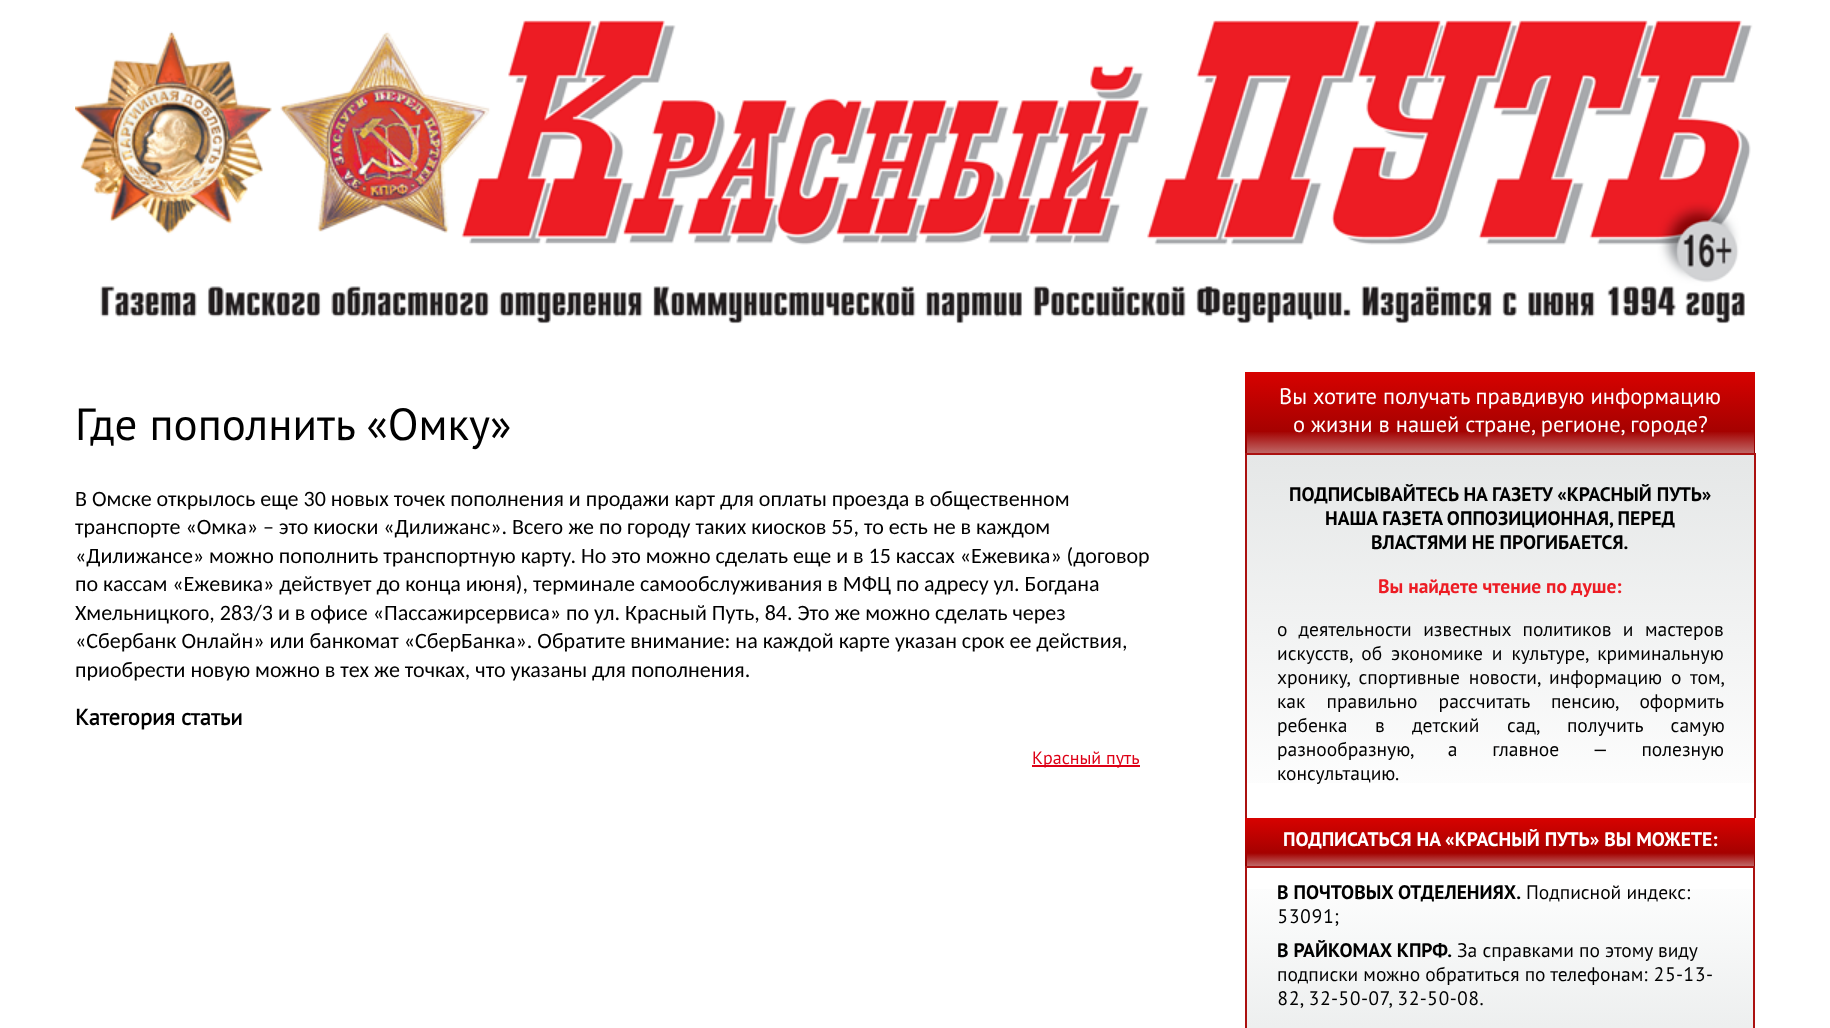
(async () => {
    const canvas = document.querySelector("canvas");
    canvas.width = 1830;
    canvas.height = 1028;
    const context = canvas.getContext("2d");
    context.miterLimit = 4;
    context.fontKerning = "normal";
    function write(s, x, y, font, color) {
        context.font = font;
        context.fillStyle = color;
        context.fillText(s, x, y);
    }
    function block(x, y, w, h, color) {
        context.fillStyle = color;
        context.fillRect(x, y, w, h);
    }
    async function photo(src, x, y, w, h) {
        const img = new Image();
        img.src = src;
        await img.decode();
        context.drawImage(img, x, y, w, h);
    }
    let gradient;

    block(0, 0, 1830, 1028, "rgb(255, 255, 255)");
    await photo("media/1.png", 75, 20, 1678, 304);
    write("Где пополнить «Омку»", 75, 440, "45px PT Sans", "rgb(0, 0, 0)");
    write("В Омске открылось еще 30 новых точек пополнения и продажи карт для оплаты проезда в общественном", 75, 506, "22px Carlito", "rgb(0, 0, 0)");
    write("транспорте «Омка» – это киоски «Дилижанс». Всего же по городу таких киосков 55, то есть не в каждом", 75, 534, "22px Carlito", "rgb(0, 0, 0)");
    write("«Дилижансе» можно пополнить транспортную карту. Но это можно сделать еще и в 15 кассах «Ежевика» (договор", 75, 563, "22px Carlito", "rgb(0, 0, 0)");
    write("по кассам «Ежевика» действует до конца июня), терминале самообслуживания в МФЦ по адресу ул. Богдана", 75, 591, "22px Carlito", "rgb(0, 0, 0)");
    write("Хмельницкого, 283/3 и в офисе «Пассажирсервиса» по ул. Красный Путь, 84. Это же можно сделать через", 75, 620, "22px Carlito", "rgb(0, 0, 0)");
    write("«Сбербанк Онлайн» или банкомат «СберБанка». Обратите внимание: на каждой карте указан срок ее действия,", 75, 648, "22px Carlito", "rgb(0, 0, 0)");
    write("приобрести новую можно в тех же точках, что указаны для пополнения.", 75, 677, "22px Carlito", "rgb(0, 0, 0)");
    write("Категория статьи", 75, 725, "bold 22.5px PT Sans", "rgb(0, 0, 0)");
    block(1032, 765, 108, 2, "rgb(222, 0, 22)");
    write("Красный путь", 1032, 764, "18px PT Sans", "rgb(222, 0, 22)");
    gradient = context.createLinearGradient(1500, 453, 1500, 372);
    gradient.addColorStop(0, "rgb(147, 1, 0)");
    gradient.addColorStop(1, "rgb(215, 2, 0)");
    context.fillStyle = gradient;
    context.fillRect(1245, 372, 510, 81);
    gradient = context.createLinearGradient(1500, 372, 1500, 453);
    gradient.addColorStop(0, "rgb(214, 2, 0)");
    gradient.addColorStop(0.73, "rgb(164, 1, 0)");
    gradient.addColorStop(1, "rgb(191, 103, 102)");
    context.fillStyle = gradient;
    context.fillRect(1247, 432, 507, 21);
    write("Вы хотите получать правдивую информацию", 1279, 404, "22.5px PT Sans", "rgb(255, 255, 255)");
    write("о жизни в нашей стране, регионе, городе?", 1293, 432, "22.5px PT Sans", "rgb(255, 255, 255)");
    gradient = context.createLinearGradient(1500, 818, 1500, 455);
    gradient.addColorStop(0, "rgb(255, 255, 255)");
    gradient.addColorStop(1, "rgb(229, 231, 231)");
    context.fillStyle = gradient;
    context.fillRect(1247, 455, 507, 328);
    block(1245, 453, 510, 2, "rgb(171, 17, 16)");
    block(1754, 453, 2, 365, "rgb(171, 17, 16)");
    block(1245, 453, 2, 365, "rgb(171, 17, 16)");
    write("ПОДПИСЫВАЙТЕСЬ НА ГАЗЕТУ «КРАСНЫЙ ПУТЬ»", 1289, 501, "bold 19.5px 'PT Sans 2'", "rgb(0, 0, 0)");
    write("НАША ГАЗЕТА ОППОЗИЦИОННАЯ, ПЕРЕД", 1325, 525, "bold 19.5px 'PT Sans 2'", "rgb(0, 0, 0)");
    write("ВЛАСТЯМИ НЕ ПРОГИБАЕТСЯ.", 1371, 549, "bold 19.5px 'PT Sans 2'", "rgb(0, 0, 0)");
    write("Вы найдете чтение по душе:", 1378, 593, "bold 19.5px 'PT Sans 2'", "rgb(237, 28, 36)");
    context.wordSpacing = "6.25px";
    write("о деятельности известных политиков и мастеров", 1277, 636, "19.5px PT Sans", "rgb(0, 0, 0)");
    context.wordSpacing = "3.75px";
    write("искусств, об экономике и культуре, криминальную", 1277, 660, "19.5px PT Sans", "rgb(0, 0, 0)");
    write("хронику, спортивные новости, информацию о том,", 1277, 684, "19.5px PT Sans", "rgb(0, 0, 0)");
    context.wordSpacing = "16px";
    write("как правильно рассчитать пенсию, оформить", 1277, 708, "19.5px PT Sans", "rgb(0, 0, 0)");
    context.wordSpacing = "22.5px";
    write("ребенка в детский сад, получить самую", 1277, 732, "19.5px PT Sans", "rgb(0, 0, 0)");
    context.wordSpacing = "29.5px";
    write("разнообразную, а главное — полезную", 1277, 756, "19.5px PT Sans", "rgb(0, 0, 0)");
    context.wordSpacing = "0px";
    write("консультацию.", 1277, 780, "19.5px PT Sans", "rgb(0, 0, 0)");
    gradient = context.createLinearGradient(1500, 866, 1500, 818);
    gradient.addColorStop(0, "rgb(147, 1, 0)");
    gradient.addColorStop(1, "rgb(215, 2, 0)");
    context.fillStyle = gradient;
    context.fillRect(1245, 818, 510, 48);
    gradient = context.createLinearGradient(1500, 818, 1500, 866);
    gradient.addColorStop(0, "rgb(214, 2, 0)");
    gradient.addColorStop(0.73, "rgb(164, 1, 0)");
    gradient.addColorStop(1, "rgb(191, 103, 102)");
    context.fillStyle = gradient;
    context.fillRect(1247, 853, 507, 13);
    write("ПОДПИСАТЬСЯ НА «КРАСНЫЙ ПУТЬ» ВЫ МОЖЕТЕ:", 1283, 846, "bold 19.5px 'PT Sans 2'", "rgb(255, 255, 255)");
    gradient = context.createLinearGradient(1500, 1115, 1500, 867);
    gradient.addColorStop(0, "rgb(227, 230, 230)");
    gradient.addColorStop(1, "rgb(255, 255, 255)");
    context.fillStyle = gradient;
    context.fillRect(1247, 889, 506, 139);
    context.strokeStyle = "rgb(171, 17, 16)";
    context.lineWidth = 2;
    context.strokeRect(1246, 867, 508, 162);
    write("В ПОЧТОВЫХ ОТДЕЛЕНИЯХ.", 1277, 899, "bold 19.5px 'PT Sans 2'", "rgb(0, 0, 0)");
    write("Подписной индекс:", 1526, 899, "19.5px PT Sans", "rgb(0, 0, 0)");
    write("53091;", 1277, 923, "19.5px PT Sans", "rgb(0, 0, 0)");
    write("В РАЙКОМАХ КПРФ.", 1277, 957, "bold 19.5px 'PT Sans 2'", "rgb(0, 0, 0)");
    write("За справками по этому виду", 1457, 957, "19.5px PT Sans", "rgb(0, 0, 0)");
    write("подписки можно обратиться по телефонам: 25-13-", 1277, 981, "19.5px PT Sans", "rgb(0, 0, 0)");
    write("82, 32-50-07, 32-50-08.", 1277, 1005, "19.5px PT Sans", "rgb(0, 0, 0)");
})();
